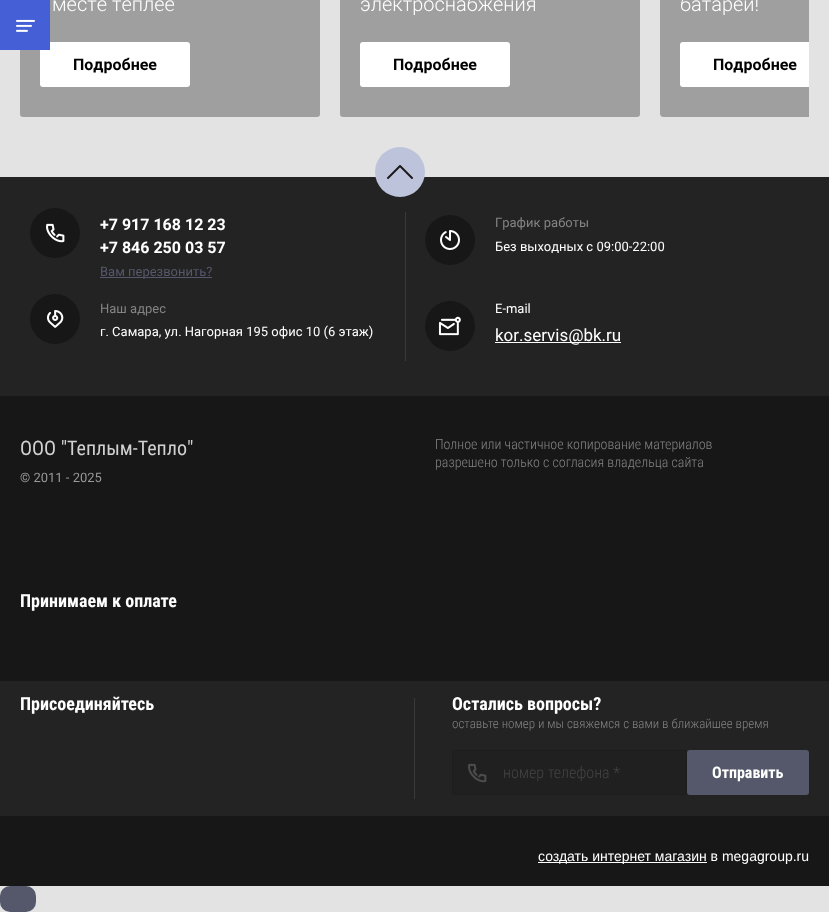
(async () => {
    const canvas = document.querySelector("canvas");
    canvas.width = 829;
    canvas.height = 912;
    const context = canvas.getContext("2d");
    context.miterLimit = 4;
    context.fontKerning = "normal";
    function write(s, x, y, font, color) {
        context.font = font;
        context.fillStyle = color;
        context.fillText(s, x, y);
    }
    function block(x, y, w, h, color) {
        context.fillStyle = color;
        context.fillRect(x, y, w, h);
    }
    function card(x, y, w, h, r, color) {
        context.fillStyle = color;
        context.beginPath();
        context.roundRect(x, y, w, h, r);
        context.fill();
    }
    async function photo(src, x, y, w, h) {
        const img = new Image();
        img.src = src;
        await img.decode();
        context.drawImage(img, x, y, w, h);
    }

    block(0, 0, 829, 912, "rgb(227, 227, 227)");
    card(20, -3, 300, 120, 3, "rgb(159, 159, 159)");
    card(40, 42, 150, 45, 3, "rgb(255, 255, 255)");
    block(0, 0, 50, 50, "rgb(69, 96, 215)");
    await photo("media/1.png", 16, 19, 19, 13);
    write("месте теплее", 52, 11, "300 20px Roboto", "rgb(255, 255, 255)");
    write("Подробнее", 73, 70, "bold 16px Roboto", "rgb(0, 0, 0)");
    card(340, -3, 300, 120, 3, "rgb(159, 159, 159)");
    write("электроснабжения", 360, 11, "300 20px Roboto", "rgb(255, 255, 255)");
    card(360, 42, 150, 45, 3, "rgb(255, 255, 255)");
    write("Подробнее", 393, 70, "bold 16px Roboto", "rgb(0, 0, 0)");
    context.fillStyle = "rgb(159, 159, 159)";
    context.beginPath();
    context.moveTo(663, -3);
    context.lineTo(809, -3);
    context.lineTo(809, 117);
    context.lineTo(663, 117);
    context.bezierCurveTo(661.5, 117, 660, 115.5, 660, 114);
    context.lineTo(660, 0);
    context.bezierCurveTo(660, -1.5, 661.5, -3, 663, -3);
    context.closePath();
    context.fill();
    write("батарей!", 680, 11, "300 20px Roboto", "rgb(255, 255, 255)");
    context.beginPath();
    context.roundRect(680, 42, 129, 45, [3, 0, 0, 3]);
    context.fill();
    write("Подробнее", 713, 70, "bold 16px Roboto", "rgb(0, 0, 0)");
    block(0, 396, 829, 490, "rgb(24, 23, 23)");
    block(0, 177, 829, 219, "rgb(36, 35, 35)");
    context.fillStyle = "rgb(190, 195, 220)";
    context.beginPath();
    context.arc(400, 172, 25, 0, Math.PI * 2);
    context.fill();
    await photo("media/2.png", 387, 165, 26, 14);
    context.fillStyle = "rgb(24, 23, 23)";
    context.beginPath();
    context.arc(55, 233, 25, 0, Math.PI * 2);
    context.fill();
    await photo("media/3.png", 46, 223, 19, 20);
    write("+7 917 168 12 23", 100, 230, "bold 16px Roboto", "rgb(255, 255, 255)");
    write("+7 846 250 03 57", 100, 253, "bold 16px Roboto", "rgb(255, 255, 255)");
    block(100, 277, 112, 1, "rgb(84, 88, 106)");
    write("Вам перезвонить?", 100, 276, "13px Roboto", "rgb(84, 88, 106)");
    block(405, 212, 1, 149, "rgb(58, 57, 57)");
    context.fillStyle = "rgb(24, 23, 23)";
    context.beginPath();
    context.arc(450, 240, 25, 0, Math.PI * 2);
    context.fill();
    await photo("media/4.png", 440, 230, 20, 20);
    write("График работы", 495, 227, "13px Roboto", "rgb(132, 132, 132)");
    write("Без выходных с 09:00-22:00", 495, 251, "13px Roboto", "rgb(255, 255, 255)");
    context.fillStyle = "rgb(24, 23, 23)";
    context.beginPath();
    context.arc(55, 319, 25, 0, Math.PI * 2);
    context.fill();
    await photo("media/5.png", 47, 310, 17, 18);
    write("Наш адрес", 100, 313, "13px Roboto", "rgb(132, 132, 132)");
    write("г. Самара, ул. Нагорная 195 офис 10 (6 этаж)", 100, 336, "13px Roboto", "rgb(255, 255, 255)");
    context.fillStyle = "rgb(24, 23, 23)";
    context.beginPath();
    context.arc(450, 326, 25, 0, Math.PI * 2);
    context.fill();
    await photo("media/6.png", 438, 316, 23, 20);
    write("E-mail", 495, 313, "13px Roboto", "rgb(255, 255, 255)");
    block(495, 342, 126, 1, "rgb(255, 255, 255)");
    write("kor.servis@bk.ru", 495, 341, "17px Roboto", "rgb(255, 255, 255)");
    write("ООО \"Теплым-Тепло\"", 20, 455, "20px Roboto Condensed", "rgb(209, 209, 209)");
    write("© 2011 - 2025", 20, 482, "13px Roboto", "rgb(153, 153, 153)");
    write("Полное или частичное копирование материалов", 435, 449, "300 14px Roboto Condensed", "rgb(132, 132, 132)");
    write("разрешено только с согласия владельца сайта", 435, 467, "300 14px Roboto Condensed", "rgb(132, 132, 132)");
    write("Принимаем к оплате", 20, 607, "bold 18px Roboto Condensed", "rgb(255, 255, 255)");
    block(0, 681, 829, 135, "rgb(36, 35, 35)");
    write("Присоединяйтесь", 20, 710, "bold 18px Roboto Condensed", "rgb(255, 255, 255)");
    block(414, 698, 1, 101, "rgb(58, 57, 57)");
    write("Остались вопросы?", 452, 710, "bold 18px Roboto Condensed", "rgb(255, 255, 255)");
    write("оставьте номер и мы свяжемся с вами в ближайшее время", 452, 728, "300 13px Roboto Condensed", "rgb(132, 132, 132)");
    card(452, 750, 235, 45, 3, "rgb(32, 32, 32)");
    await photo("media/7.png", 468, 763, 19, 20);
    context.beginPath();
    context.roundRect(452.5, 750.5, 234, 44, 2.5);
    context.strokeStyle = "rgb(29, 29, 29)";
    context.stroke();
    write("номер телефона *", 503, 778, "300 16px Roboto Condensed", "rgb(67, 67, 67)");
    card(687, 750, 122, 45, 3, "rgb(84, 88, 106)");
    write("Отправить", 712, 778, "bold 16px Roboto Condensed", "rgb(255, 255, 255)");
    block(538, 862, 169, 1, "rgb(255, 255, 255)");
    write("создать интернет магазин в megagroup.ru", 538, 861, "14px Liberation Sans", "rgb(255, 255, 255)");
    card(0, 886, 36, 26, 10, "rgb(84, 88, 106)");
})();
